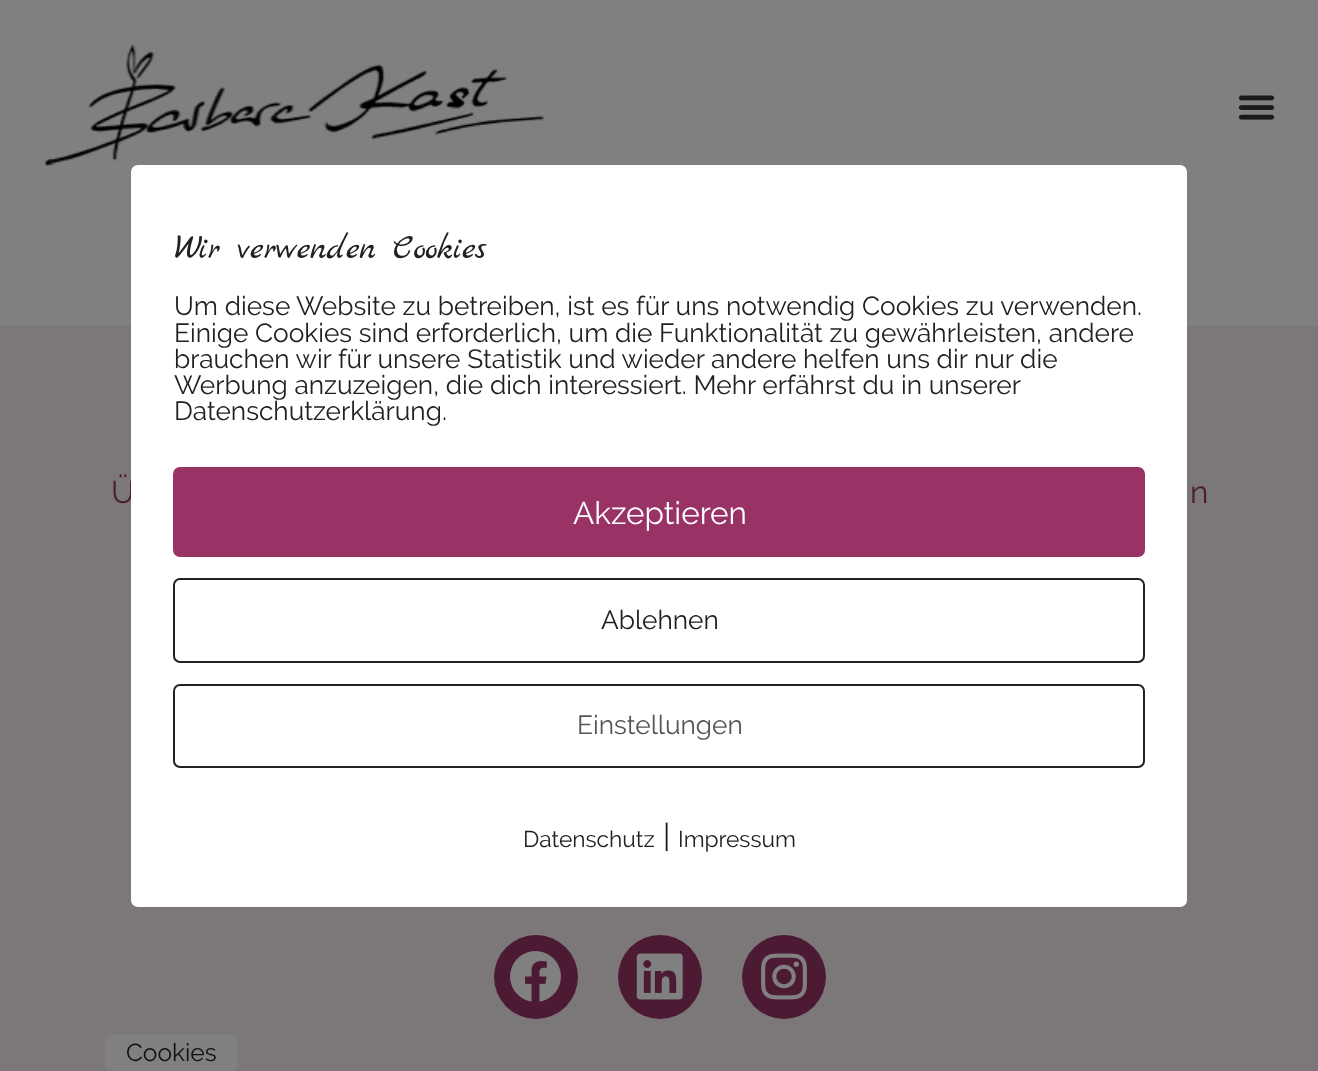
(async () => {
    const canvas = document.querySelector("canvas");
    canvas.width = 1318;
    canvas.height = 1071;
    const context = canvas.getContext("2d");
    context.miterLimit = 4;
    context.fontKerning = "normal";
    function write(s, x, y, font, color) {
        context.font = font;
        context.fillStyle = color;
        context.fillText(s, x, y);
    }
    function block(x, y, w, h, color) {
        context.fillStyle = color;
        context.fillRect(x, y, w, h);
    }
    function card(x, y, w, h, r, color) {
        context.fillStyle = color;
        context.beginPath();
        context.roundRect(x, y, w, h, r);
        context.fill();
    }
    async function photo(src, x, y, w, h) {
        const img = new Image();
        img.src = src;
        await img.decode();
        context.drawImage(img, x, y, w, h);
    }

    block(0, 0, 1318, 1071, "rgb(128, 128, 128)");
    await photo("media/1.png", 45, 45, 500, 121);
    await photo("media/2.png", 1238, 95, 37, 25);
    block(0, 326, 1318, 745, "rgb(124, 120, 122)");
    write("Ü", 111, 503, "31.5px Raleway", "rgb(77, 26, 51)");
    card(131, 165, 1056, 742, 7, "rgb(255, 255, 255)");
    write("Wir verwenden Cookies", 174, 258, "35px Marck Script", "rgb(33, 33, 33)");
    write("Um diese Website zu betreiben, ist es für uns notwendig Cookies zu verwenden.", 174, 315, "26.25px Raleway", "rgb(33, 33, 33)");
    write("Einige Cookies sind erforderlich, um die Funktionalität zu gewährleisten, andere", 174, 342, "26.25px Raleway", "rgb(33, 33, 33)");
    write("brauchen wir für unsere Statistik und wieder andere helfen uns dir nur die", 174, 368, "26.25px Raleway", "rgb(33, 33, 33)");
    write("Werbung anzuzeigen, die dich interessiert. Mehr erfährst du in unserer", 174, 394, "26.25px Raleway", "rgb(33, 33, 33)");
    write("Datenschutzerklärung.", 174, 420, "26.25px Raleway", "rgb(33, 33, 33)");
    card(173, 467, 972, 90, 7, "rgb(153, 51, 102)");
    write("Akzeptieren", 573, 524, "31.5px Raleway", "rgb(255, 255, 255)");
    context.beginPath();
    context.roundRect(174, 579, 970, 83, 6);
    context.strokeStyle = "rgb(33, 33, 33)";
    context.lineWidth = 2;
    context.stroke();
    write("Ablehnen", 601, 629, "26.25px Raleway", "rgb(33, 33, 33)");
    context.beginPath();
    context.roundRect(174, 685, 970, 82, 6);
    context.stroke();
    write("Einstellungen", 577, 734, "26.25px Raleway", "rgb(85, 85, 85)");
    write("Datenschutz", 523, 847, "22.75px Raleway", "rgb(33, 33, 33)");
    write("|", 663, 847, "31.5px Raleway", "rgb(33, 33, 33)");
    write("Impressum", 678, 847, "22.75px Raleway", "rgb(33, 33, 33)");
    write("n", 1190, 503, "31.5px Raleway", "rgb(77, 26, 51)");
    context.beginPath();
    context.arc(536, 977, 42, 0, Math.PI * 2);
    context.fill();
    await photo("media/3.png", 510, 951, 51, 51);
    context.beginPath();
    context.arc(660, 977, 42, 0, Math.PI * 2);
    context.fill();
    await photo("media/4.png", 636, 953, 47, 47);
    context.beginPath();
    context.arc(784, 977, 42, 0, Math.PI * 2);
    context.fill();
    await photo("media/5.png", 761, 953, 46, 47);
    card(105, 1034, 133, 37, 7, "rgb(128, 128, 128)");
    write("Cookies", 126, 1061, "24.5px Raleway", "rgb(17, 17, 17)");
})();
